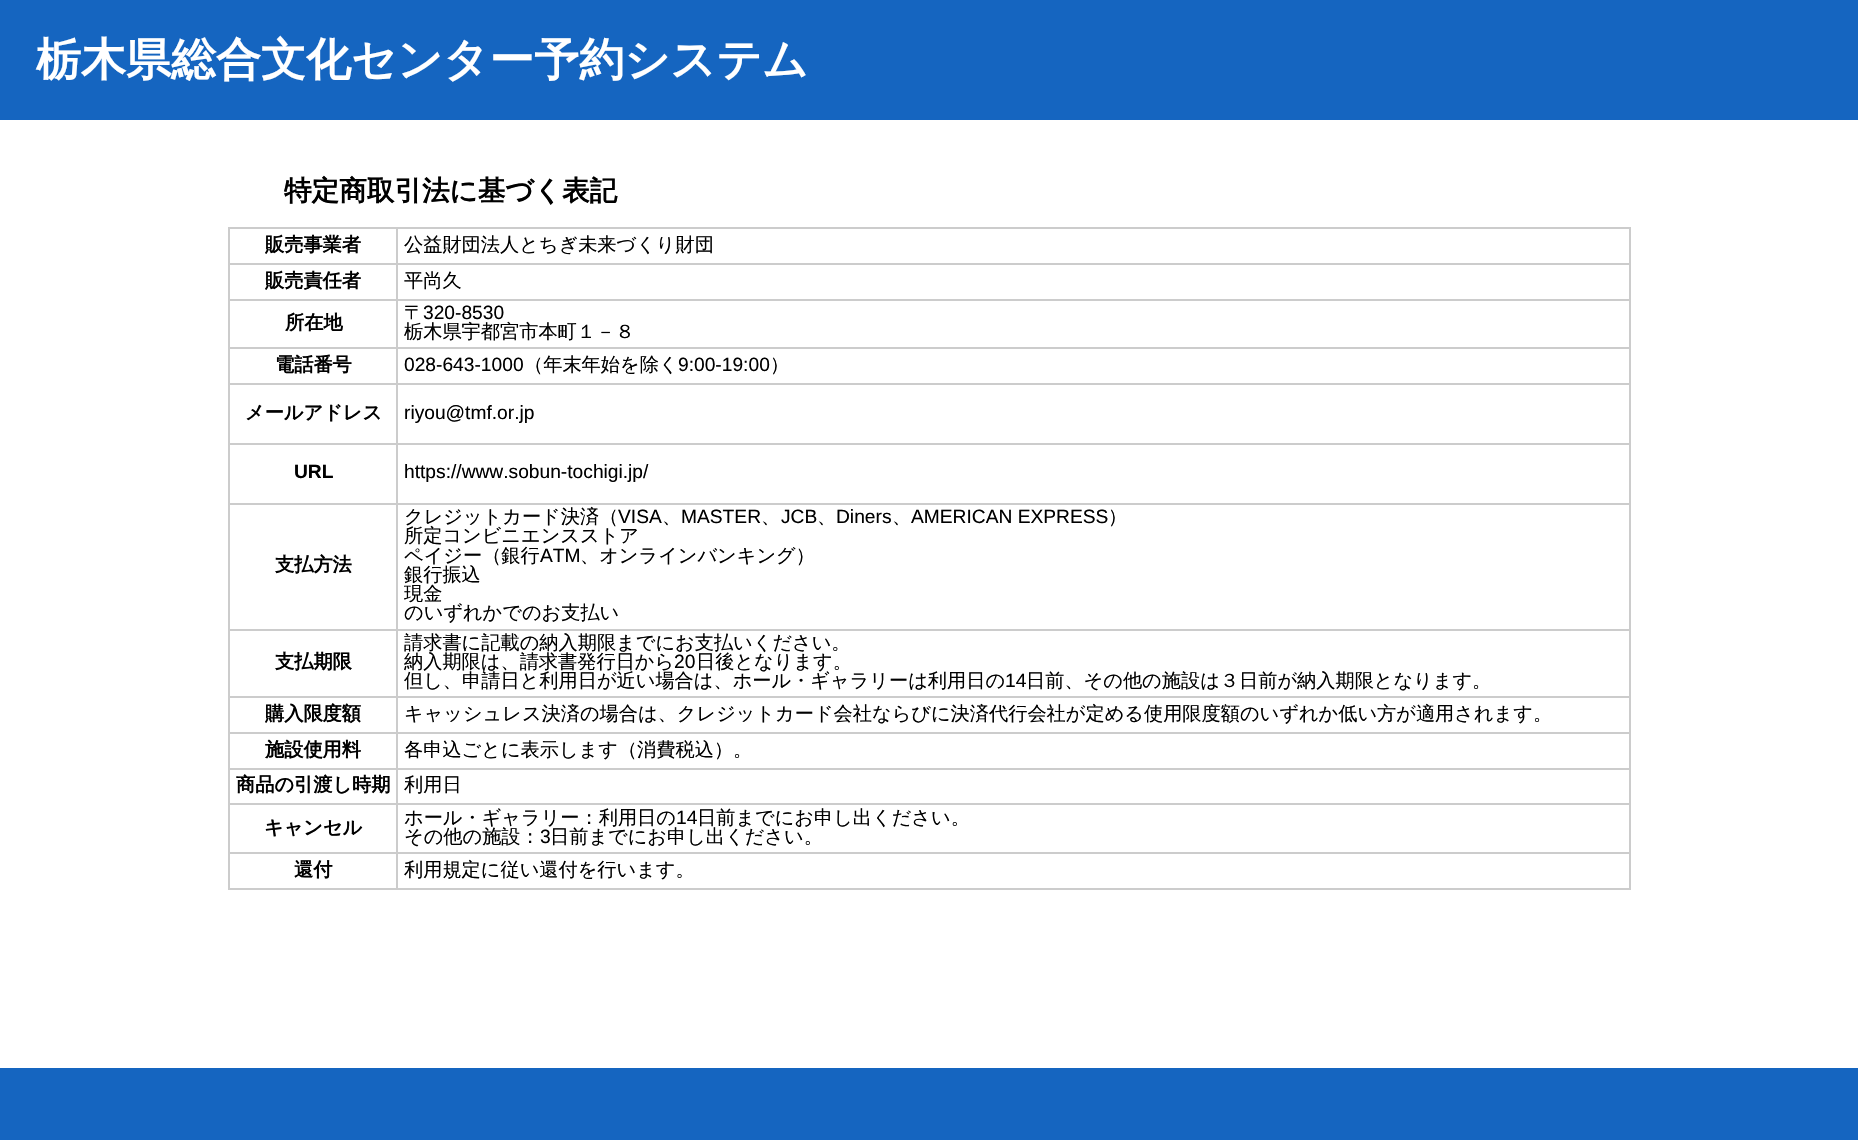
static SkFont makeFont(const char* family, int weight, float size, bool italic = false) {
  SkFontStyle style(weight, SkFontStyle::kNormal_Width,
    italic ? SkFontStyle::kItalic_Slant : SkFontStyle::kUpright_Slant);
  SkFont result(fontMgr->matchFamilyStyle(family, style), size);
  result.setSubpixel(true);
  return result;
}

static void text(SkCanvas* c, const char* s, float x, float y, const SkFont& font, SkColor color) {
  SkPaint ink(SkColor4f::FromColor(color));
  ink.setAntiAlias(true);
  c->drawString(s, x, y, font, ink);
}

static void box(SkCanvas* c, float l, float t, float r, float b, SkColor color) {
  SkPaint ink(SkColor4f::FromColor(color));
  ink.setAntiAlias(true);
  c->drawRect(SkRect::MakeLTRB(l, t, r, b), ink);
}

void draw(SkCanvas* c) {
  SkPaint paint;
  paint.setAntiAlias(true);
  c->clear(0xffffffff);
  box(c, 0, 0, 1858, 120, 0xff1565c0);
  SkFont face1 = makeFont("WenQuanYi Zen Hei", 700, 45);
  text(c, "栃木県総合文化センター予約システム", 36, 75, face1, 0xffffffff);
  SkFont face2 = makeFont("WenQuanYi Zen Hei", 700, 27.6f);
  text(c, "特定商取引法に基づく表記", 284, 200, face2, 0xff000000);
  box(c, 396, 227, 1631, 229, 0xffcccccc);
  box(c, 396, 263, 1631, 265, 0xffcccccc);
  box(c, 396, 299, 1631, 301, 0xffcccccc);
  box(c, 396, 347, 1631, 349, 0xffcccccc);
  box(c, 396, 383, 1631, 385, 0xffcccccc);
  box(c, 396, 443, 1631, 445, 0xffcccccc);
  box(c, 396, 503, 1631, 505, 0xffcccccc);
  box(c, 396, 629, 1631, 631, 0xffcccccc);
  box(c, 396, 696, 1631, 698, 0xffcccccc);
  box(c, 396, 732, 1631, 734, 0xffcccccc);
  box(c, 396, 768, 1631, 770, 0xffcccccc);
  box(c, 396, 803, 1631, 805, 0xffcccccc);
  box(c, 396, 852, 1631, 854, 0xffcccccc);
  box(c, 1629, 852, 1631, 890, 0xffcccccc);
  box(c, 396, 888, 1631, 890, 0xffcccccc);
  box(c, 396, 852, 398, 890, 0xffcccccc);
  box(c, 228, 852, 398, 854, 0xffcccccc);
  box(c, 396, 803, 398, 854, 0xffcccccc);
  box(c, 228, 803, 398, 805, 0xffcccccc);
  box(c, 396, 768, 398, 804, 0xffcccccc);
  box(c, 228, 768, 398, 770, 0xffcccccc);
  box(c, 396, 732, 398, 770, 0xffcccccc);
  box(c, 228, 732, 398, 734, 0xffcccccc);
  box(c, 396, 696, 398, 734, 0xffcccccc);
  box(c, 228, 696, 398, 698, 0xffcccccc);
  box(c, 396, 629, 398, 698, 0xffcccccc);
  box(c, 228, 629, 398, 631, 0xffcccccc);
  box(c, 396, 503, 398, 630, 0xffcccccc);
  box(c, 228, 503, 398, 505, 0xffcccccc);
  box(c, 396, 443, 398, 504, 0xffcccccc);
  box(c, 228, 443, 398, 445, 0xffcccccc);
  box(c, 396, 383, 398, 444, 0xffcccccc);
  box(c, 228, 383, 398, 385, 0xffcccccc);
  box(c, 396, 347, 398, 384, 0xffcccccc);
  box(c, 228, 347, 398, 349, 0xffcccccc);
  box(c, 396, 299, 398, 348, 0xffcccccc);
  box(c, 228, 299, 398, 301, 0xffcccccc);
  box(c, 396, 263, 398, 300, 0xffcccccc);
  box(c, 228, 263, 398, 265, 0xffcccccc);
  box(c, 396, 227, 398, 264, 0xffcccccc);
  box(c, 228, 227, 398, 229, 0xffcccccc);
  box(c, 228, 888, 398, 890, 0xffcccccc);
  box(c, 228, 852, 230, 890, 0xffcccccc);
  box(c, 228, 803, 230, 854, 0xffcccccc);
  box(c, 228, 768, 230, 804, 0xffcccccc);
  box(c, 228, 732, 230, 770, 0xffcccccc);
  box(c, 228, 696, 230, 734, 0xffcccccc);
  box(c, 228, 629, 230, 698, 0xffcccccc);
  box(c, 228, 503, 230, 630, 0xffcccccc);
  box(c, 228, 443, 230, 504, 0xffcccccc);
  box(c, 228, 383, 230, 444, 0xffcccccc);
  box(c, 228, 347, 230, 384, 0xffcccccc);
  box(c, 228, 299, 230, 348, 0xffcccccc);
  box(c, 228, 263, 230, 300, 0xffcccccc);
  box(c, 228, 227, 230, 264, 0xffcccccc);
  SkFont face3 = makeFont("WenQuanYi Zen Hei", 700, 19.2f);
  text(c, "販売事業者", 265, 251, face3, 0xff000000);
  box(c, 1629, 803, 1631, 854, 0xffcccccc);
  box(c, 1629, 768, 1631, 804, 0xffcccccc);
  box(c, 1629, 732, 1631, 770, 0xffcccccc);
  box(c, 1629, 696, 1631, 734, 0xffcccccc);
  box(c, 1629, 629, 1631, 698, 0xffcccccc);
  box(c, 1629, 503, 1631, 630, 0xffcccccc);
  box(c, 1629, 443, 1631, 504, 0xffcccccc);
  box(c, 1629, 383, 1631, 444, 0xffcccccc);
  box(c, 1629, 347, 1631, 384, 0xffcccccc);
  box(c, 1629, 299, 1631, 348, 0xffcccccc);
  box(c, 1629, 263, 1631, 300, 0xffcccccc);
  box(c, 1629, 227, 1631, 264, 0xffcccccc);
  SkFont face4 = makeFont("WenQuanYi Zen Hei", 500, 19.2f);
  text(c, "公益財団法人とちぎ未来づくり財団", 404, 251, face4, 0xff000000);
  text(c, "販売責任者", 265, 287, face3, 0xff000000);
  text(c, "平尚久", 404, 287, face4, 0xff000000);
  text(c, "所在地", 285, 329, face3, 0xff000000);
  text(c, "〒", 404, 319, face4, 0xff000000);
  SkFont face5 = makeFont("Liberation Sans", 400, 19.2f);
  text(c, "320-8530", 423, 319, face5, 0xff000000);
  text(c, "栃木県宇都宮市本町１－８", 404, 338, face4, 0xff000000);
  text(c, "電話番号", 275, 371, face3, 0xff000000);
  text(c, "028-643-1000", 404, 371, face5, 0xff000000);
  text(c, "（年末年始を除く", 524, 371, face4, 0xff000000);
  text(c, "9:00-19:00", 678, 371, face5, 0xff000000);
  text(c, "）", 770, 371, face4, 0xff000000);
  text(c, "メールアドレス", 245, 419, face3, 0xff000000);
  text(c, "riyou@tmf.or.jp", 404, 419, face5, 0xff000000);
  SkFont face6 = makeFont("Liberation Sans", 700, 19.2f);
  text(c, "URL", 294, 478, face6, 0xff000000);
  text(c, "https://www.sobun-tochigi.jp/", 404, 478, face5, 0xff000000);
  text(c, "支払方法", 275, 571, face3, 0xff000000);
  text(c, "クレジットカード決済（", 404, 523, face4, 0xff000000);
  text(c, "VISA", 618, 523, face5, 0xff000000);
  text(c, "、", 662, 523, face4, 0xff000000);
  text(c, "MASTER", 681, 523, face5, 0xff000000);
  text(c, "、", 761, 523, face4, 0xff000000);
  text(c, "JCB", 781, 523, face5, 0xff000000);
  text(c, "、", 817, 523, face4, 0xff000000);
  text(c, "Diners", 836, 523, face5, 0xff000000);
  text(c, "、", 892, 523, face4, 0xff000000);
  text(c, "AMERICAN EXPRESS", 911, 523, face5, 0xff000000);
  text(c, "）", 1108, 523, face4, 0xff000000);
  text(c, "所定コンビニエンスストア", 404, 542, face4, 0xff000000);
  text(c, "ペイジー（銀行", 404, 562, face4, 0xff000000);
  text(c, "ATM", 540, 562, face5, 0xff000000);
  text(c, "、オンラインバンキング）", 580, 562, face4, 0xff000000);
  text(c, "銀行振込", 404, 581, face4, 0xff000000);
  text(c, "現金", 404, 600, face4, 0xff000000);
  text(c, "のいずれかでのお支払い", 404, 619, face4, 0xff000000);
  text(c, "支払期限", 275, 668, face3, 0xff000000);
  text(c, "請求書に記載の納入期限までにお支払いください。", 404, 649, face4, 0xff000000);
  text(c, "納入期限は、請求書発行日から", 404, 668, face4, 0xff000000);
  text(c, "20", 674, 668, face5, 0xff000000);
  text(c, "日後となります。", 696, 668, face4, 0xff000000);
  text(c, "但し、申請日と利用日が近い場合は、ホール・ギャラリーは利用日の", 404, 687, face4, 0xff000000);
  text(c, "14", 1005, 687, face5, 0xff000000);
  text(c, "日前、その他の施設は３日前が納入期限となります。", 1026, 687, face4, 0xff000000);
  text(c, "購入限度額", 265, 720, face3, 0xff000000);
  text(c, "キャッシュレス決済の場合は、クレジットカード会社ならびに決済代行会社が定める使用限度額のいずれか低い方が適用されます。", 404, 720, face4, 0xff000000);
  text(c, "施設使用料", 265, 756, face3, 0xff000000);
  text(c, "各申込ごとに表示します（消費税込）。", 404, 756, face4, 0xff000000);
  text(c, "商品の引渡し時期", 236, 791, face3, 0xff000000);
  text(c, "利用日", 404, 791, face4, 0xff000000);
  text(c, "キャンセル", 264, 834, face3, 0xff000000);
  text(c, "ホール・ギャラリー：利用日の", 404, 824, face4, 0xff000000);
  text(c, "14", 676, 824, face5, 0xff000000);
  text(c, "日前までにお申し出ください。", 697, 824, face4, 0xff000000);
  text(c, "その他の施設：", 404, 843, face4, 0xff000000);
  text(c, "3", 540, 843, face5, 0xff000000);
  text(c, "日前までにお申し出ください。", 550, 843, face4, 0xff000000);
  text(c, "還付", 294, 876, face3, 0xff000000);
  text(c, "利用規定に従い還付を行います。", 404, 876, face4, 0xff000000);
  box(c, 0, 1068, 1858, 1140, 0xff1565c0);
}
